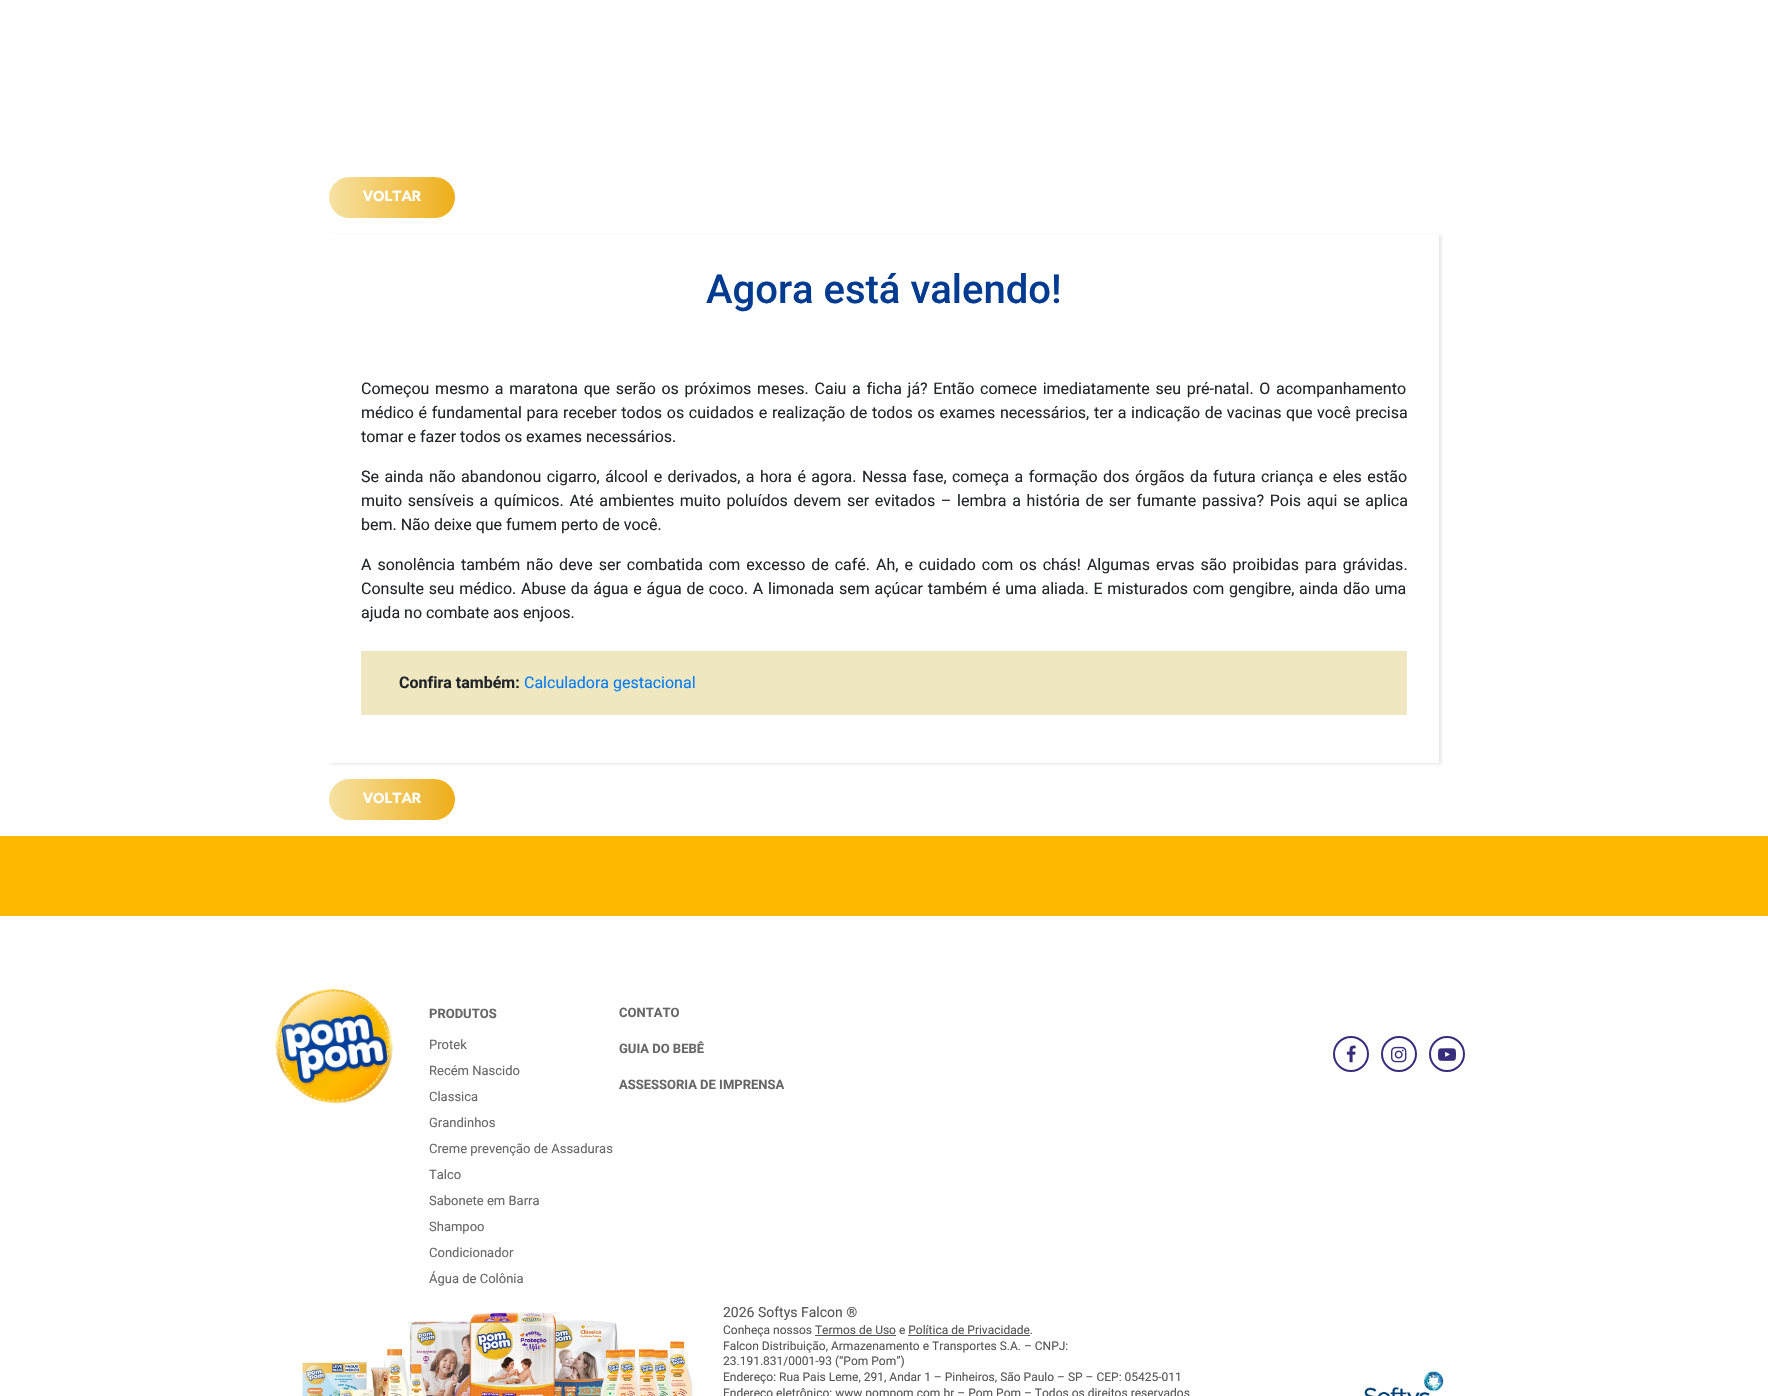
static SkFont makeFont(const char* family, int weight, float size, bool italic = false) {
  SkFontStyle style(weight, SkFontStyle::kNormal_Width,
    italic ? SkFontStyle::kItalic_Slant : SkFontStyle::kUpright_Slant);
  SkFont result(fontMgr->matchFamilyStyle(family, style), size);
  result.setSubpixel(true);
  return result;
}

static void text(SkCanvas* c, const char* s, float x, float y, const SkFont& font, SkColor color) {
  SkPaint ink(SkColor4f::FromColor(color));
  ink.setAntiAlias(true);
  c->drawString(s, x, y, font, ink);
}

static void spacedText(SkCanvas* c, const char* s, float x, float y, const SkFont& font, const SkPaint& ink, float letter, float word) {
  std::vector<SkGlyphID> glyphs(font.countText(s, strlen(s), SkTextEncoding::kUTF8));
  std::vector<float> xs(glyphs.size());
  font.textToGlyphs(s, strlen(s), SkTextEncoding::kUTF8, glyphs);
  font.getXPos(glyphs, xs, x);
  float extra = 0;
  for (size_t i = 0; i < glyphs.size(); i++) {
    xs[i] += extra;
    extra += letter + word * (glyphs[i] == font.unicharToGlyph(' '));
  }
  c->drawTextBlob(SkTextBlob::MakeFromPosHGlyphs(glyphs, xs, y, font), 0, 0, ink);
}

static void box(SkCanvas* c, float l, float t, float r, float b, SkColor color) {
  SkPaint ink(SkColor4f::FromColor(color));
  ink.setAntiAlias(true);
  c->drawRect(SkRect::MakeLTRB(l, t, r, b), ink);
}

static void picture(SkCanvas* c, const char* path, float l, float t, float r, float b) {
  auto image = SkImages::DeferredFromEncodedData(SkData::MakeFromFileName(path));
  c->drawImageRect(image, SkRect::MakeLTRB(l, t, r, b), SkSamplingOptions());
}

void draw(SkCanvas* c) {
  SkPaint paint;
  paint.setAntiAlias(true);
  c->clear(0xffffffff);
  {
    const SkColor colors[] = {0xfff6e2a3, 0xffefae19};
    const float stops[] = {0, 1};
    const SkPoint ends[] = {{329, 198}, {455, 198}};
    paint.setShader(SkGradientShader::MakeLinear(ends, colors, stops, 2, SkTileMode::kClamp));
    paint.setAlpha(255);
  }
  c->drawRoundRect(SkRect::MakeLTRB(329, 177, 455, 218), 20.5f, 20.5f, paint);
  SkFont face1 = makeFont("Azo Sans", 700, 14);
  text(c, "VOLTAR", 363, 201, face1, 0xffffffff);
  c->save();
  c->clipPath(SkPathBuilder(SkPathFillType::kEvenOdd).moveTo(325, 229).lineTo(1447, 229).lineTo(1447, 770).lineTo(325, 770).close().moveTo(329, 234).lineTo(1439, 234).lineTo(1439, 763).lineTo(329, 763).close().detach(), true);
  paint.setShader(nullptr);
  paint.setColor(0x1c000000);
  paint.setMaskFilter(SkMaskFilter::MakeBlur(kNormal_SkBlurStyle, 1.5f));
  c->drawRect(SkRect::MakeLTRB(331, 235, 1441, 764), paint);
  paint.setMaskFilter(nullptr);
  c->restore();
  SkFont face2 = makeFont("Roboto", 500, 40);
  text(c, "Agora está valendo!", 706, 303, face2, 0xff013b91);
  SkFont face3 = makeFont("Roboto", 400, 16);
  paint.setColor(0xff212529);
  spacedText(c, "Começou mesmo a maratona que serão os próximos meses. Caiu a ficha já? Então comece imediatamente seu pré-natal. O acompanhamento", 361, 394, face3, paint, 0, 1.75f);
  spacedText(c, "médico é fundamental para receber todos os cuidados e realização de todos os exames necessários, ter a indicação de vacinas que você precisa", 361, 418, face3, paint, 0, 0.7f);
  text(c, "tomar e fazer todos os exames necessários.", 361, 442, face3, 0xff212529);
  spacedText(c, "Se ainda não abandonou cigarro, álcool e derivados, a hora é agora. Nessa fase, começa a formação dos órgãos da futura criança e eles estão", 361, 482, face3, paint, 0, 1.45f);
  spacedText(c, "muito sensíveis a químicos. Até ambientes muito poluídos devem ser evitados – lembra a história de ser fumante passiva? Pois aqui se aplica", 361, 506, face3, paint, 0, 1.7f);
  text(c, "bem. Não deixe que fumem perto de você.", 361, 530, face3, 0xff212529);
  spacedText(c, "A sonolência também não deve ser combatida com excesso de café. Ah, e cuidado com os chás! Algumas ervas são proibidas para grávidas.", 361, 570, face3, paint, 0, 2);
  spacedText(c, "Consulte seu médico. Abuse da água e água de coco. A limonada sem açúcar também é uma aliada. E misturados com gengibre, ainda dão uma", 361, 594, face3, paint, 0, 0.8f);
  text(c, "ajuda no combate aos enjoos.", 361, 618, face3, 0xff212529);
  box(c, 361, 651, 1407, 715, 0xffefe7c0);
  SkFont face4 = makeFont("Roboto", 700, 16);
  text(c, "Confira também:", 399, 688, face4, 0xff212529);
  text(c, "Calculadora gestacional", 524, 688, face3, 0xff007bff);
  {
    const SkColor colors[] = {0xfff6e2a3, 0xffefae19};
    const float stops[] = {0, 1};
    const SkPoint ends[] = {{329, 800}, {455, 800}};
    paint.setShader(SkGradientShader::MakeLinear(ends, colors, stops, 2, SkTileMode::kClamp));
    paint.setAlpha(255);
  }
  c->drawRoundRect(SkRect::MakeLTRB(329, 779, 455, 820), 20.5f, 20.5f, paint);
  text(c, "VOLTAR", 363, 803, face1, 0xffffffff);
  box(c, 0, 836, 1768, 916, 0xffffba00);
  picture(c, "img_01.png", 275, 988, 393, 1104);
  SkFont face5 = makeFont("Roboto", 700, 13);
  text(c, "PRODUTOS", 429, 1018, face5, 0xff666666);
  SkFont face6 = makeFont("Roboto", 400, 13);
  text(c, "Protek", 429, 1049, face6, 0xff666666);
  text(c, "Recém Nascido", 429, 1075, face6, 0xff666666);
  text(c, "Classica", 429, 1101, face6, 0xff666666);
  text(c, "Grandinhos", 429, 1127, face6, 0xff666666);
  text(c, "Creme prevenção de Assaduras", 429, 1153, face6, 0xff666666);
  text(c, "Talco", 429, 1179, face6, 0xff666666);
  text(c, "Sabonete em Barra", 429, 1205, face6, 0xff666666);
  text(c, "Shampoo", 429, 1231, face6, 0xff666666);
  text(c, "Condicionador", 429, 1257, face6, 0xff666666);
  text(c, "Água de Colônia", 429, 1283, face6, 0xff666666);
  text(c, "CONTATO", 619, 1017, face5, 0xff666666);
  text(c, "GUIA DO BEBÊ", 619, 1053, face5, 0xff666666);
  text(c, "ASSESSORIA DE IMPRENSA", 619, 1089, face5, 0xff666666);
  paint.setStyle(SkPaint::kStroke_Style);
  paint.setStrokeWidth(2);
  paint.setShader(nullptr);
  paint.setColor(0xff382d7c);
  c->drawCircle(1351, 1054, 17, paint);
  picture(c, "img_02.png", 1346, 1045, 1356, 1063);
  c->drawCircle(1399, 1054, 17, paint);
  picture(c, "img_03.png", 1391, 1046, 1407, 1063);
  c->drawCircle(1447, 1054, 17, paint);
  picture(c, "img_04.png", 1438, 1048, 1456, 1061);
  picture(c, "img_05.png", 302, 1312, 693, 1396);
  SkFont face7 = makeFont("Roboto", 400, 14);
  text(c, "2026 Softys Falcon ®", 723, 1317, face7, 0xff555555);
  SkFont face8 = makeFont("Roboto", 400, 12);
  text(c, "Conheça nossos Termos de Uso e Política de Privacidade.", 723, 1334, face8, 0xff555555);
  box(c, 815, 1335, 896, 1336, 0xff555555);
  box(c, 908, 1335, 1030, 1336, 0xff555555);
  text(c, "Falcon Distribuição, Armazenamento e Transportes S.A. – CNPJ:", 723, 1350, face8, 0xff555555);
  text(c, "23.191.831/0001-93 (“Pom Pom”)", 723, 1365, face8, 0xff555555);
  text(c, "Endereço: Rua Pais Leme, 291, Andar 1 – Pinheiros, São Paulo – SP – CEP: 05425-011", 723, 1381, face8, 0xff555555);
  text(c, "Endereço eletrônico: www.pompom.com.br – Pom Pom – Todos os direitos reservados", 723, 1397, face8, 0xff555555);
  picture(c, "img_06.png", 1364, 1371, 1444, 1396);
}
